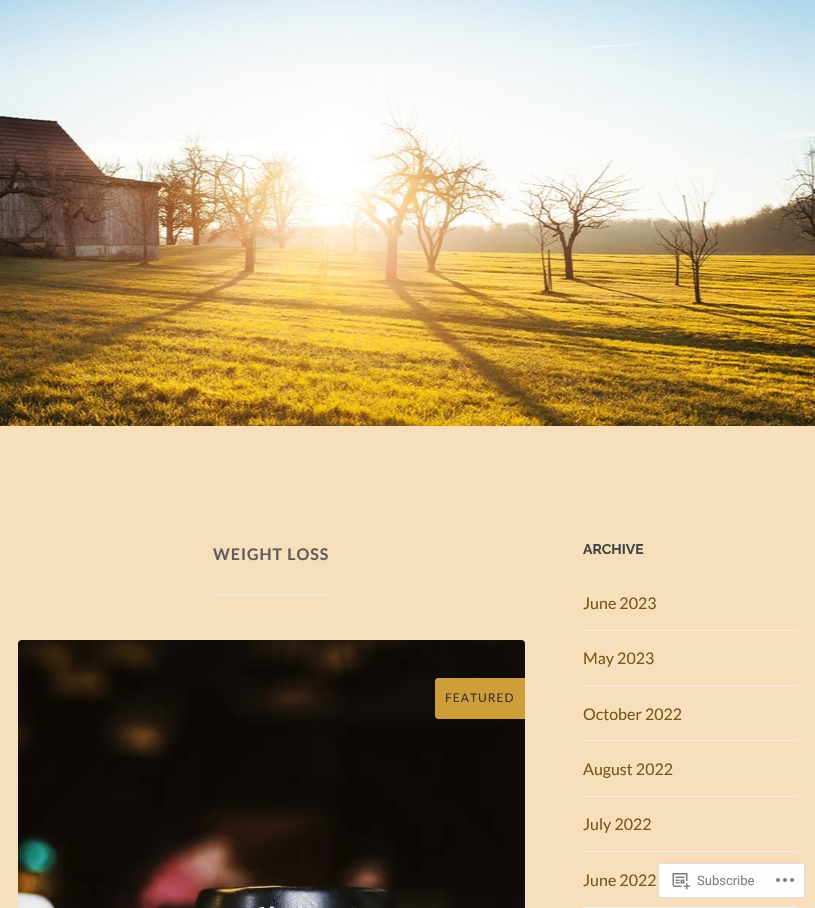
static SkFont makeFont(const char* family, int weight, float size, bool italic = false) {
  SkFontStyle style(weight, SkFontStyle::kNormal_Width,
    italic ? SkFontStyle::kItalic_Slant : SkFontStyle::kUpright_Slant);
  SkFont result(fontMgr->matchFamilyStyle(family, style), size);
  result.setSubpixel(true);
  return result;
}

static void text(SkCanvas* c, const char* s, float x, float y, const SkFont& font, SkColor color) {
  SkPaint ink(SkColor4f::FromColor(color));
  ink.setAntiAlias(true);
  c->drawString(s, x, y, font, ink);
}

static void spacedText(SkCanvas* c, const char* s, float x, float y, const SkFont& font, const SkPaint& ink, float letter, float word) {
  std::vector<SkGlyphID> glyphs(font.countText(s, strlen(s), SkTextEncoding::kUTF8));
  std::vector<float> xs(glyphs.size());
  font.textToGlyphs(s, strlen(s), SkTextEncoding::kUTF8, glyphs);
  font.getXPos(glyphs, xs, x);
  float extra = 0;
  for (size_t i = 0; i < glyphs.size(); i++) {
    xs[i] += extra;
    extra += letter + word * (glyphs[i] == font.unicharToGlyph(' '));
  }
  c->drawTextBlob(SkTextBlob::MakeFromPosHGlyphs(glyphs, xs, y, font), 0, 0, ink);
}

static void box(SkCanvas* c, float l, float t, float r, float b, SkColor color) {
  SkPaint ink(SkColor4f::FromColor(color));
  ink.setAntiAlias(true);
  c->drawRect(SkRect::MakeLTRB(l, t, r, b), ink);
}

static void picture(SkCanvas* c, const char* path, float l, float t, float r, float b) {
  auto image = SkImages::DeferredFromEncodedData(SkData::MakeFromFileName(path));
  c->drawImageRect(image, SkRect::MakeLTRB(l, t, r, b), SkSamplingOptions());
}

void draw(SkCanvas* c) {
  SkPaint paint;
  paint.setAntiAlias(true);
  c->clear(0xfff7dfbb);
  picture(c, "img_01.png", 0, 0, 815, 426);
  box(c, 213, 594, 329, 596, 0xfff3e7d5);
  SkFont face1 = makeFont("Lato", 700, 16);
  paint.setColor(0xff5e5e5e);
  spacedText(c, "WEIGHT LOSS", 213, 560, face1, paint, 1, 0);
  picture(c, "img_02.png", 18, 640, 525, 908);
  paint.setColor(0xffcf9e38);
  c->drawPath(SkPathBuilder().moveTo(438, 678).lineTo(525, 678).lineTo(525, 719).lineTo(438, 719).cubicTo(436.5f, 719, 435, 717.5f, 435, 716).lineTo(435, 681).cubicTo(435, 679.5f, 436.5f, 678, 438, 678).close().detach(), paint);
  SkFont face2 = makeFont("Lato", 400, 12);
  paint.setColor(0xff353535);
  spacedText(c, "FEATURED", 445, 702, face2, paint, 1, 0);
  SkFont face3 = makeFont("Raleway", 700, 14);
  text(c, "ARCHIVE", 583, 554, face3, 0xff444444);
  SkFont face4 = makeFont("Lato", 400, 16);
  text(c, "June 2023", 583, 609, face4, 0xff775817);
  box(c, 583, 630, 798, 631, 0xffeeeeee);
  text(c, "May 2023", 583, 664, face4, 0xff775817);
  box(c, 583, 685, 798, 686, 0xffeeeeee);
  text(c, "October 2022", 583, 720, face4, 0xff775817);
  box(c, 583, 740, 798, 741, 0xffeeeeee);
  text(c, "August 2022", 583, 775, face4, 0xff775817);
  box(c, 583, 796, 798, 797, 0xffeeeeee);
  text(c, "July 2022", 583, 830, face4, 0xff775817);
  box(c, 583, 851, 798, 852, 0xffeeeeee);
  text(c, "June 2022", 583, 886, face4, 0xff775817);
  box(c, 583, 907, 798, 908, 0xffeeeeee);
  paint.setColor(0xfffffefe);
  c->drawRoundRect(SkRect::MakeLTRB(658.5f, 863.5f, 804.5f, 897.5f), 2.5f, 2.5f, paint);
  paint.setStyle(SkPaint::kStroke_Style);
  paint.setStrokeWidth(1);
  paint.setColor(0xffdddcdd);
  c->drawRoundRect(SkRect::MakeLTRB(658.5f, 863.5f, 804.5f, 897.5f), 2.5f, 2.5f, paint);
  picture(c, "img_03.png", 672, 873, 690, 890);
  SkFont face5 = makeFont("Roboto", 400, 13);
  text(c, "Subscribe", 697, 885, face5, 0xff7b7e83);
  picture(c, "img_04.png", 776, 878, 794, 882);
}
